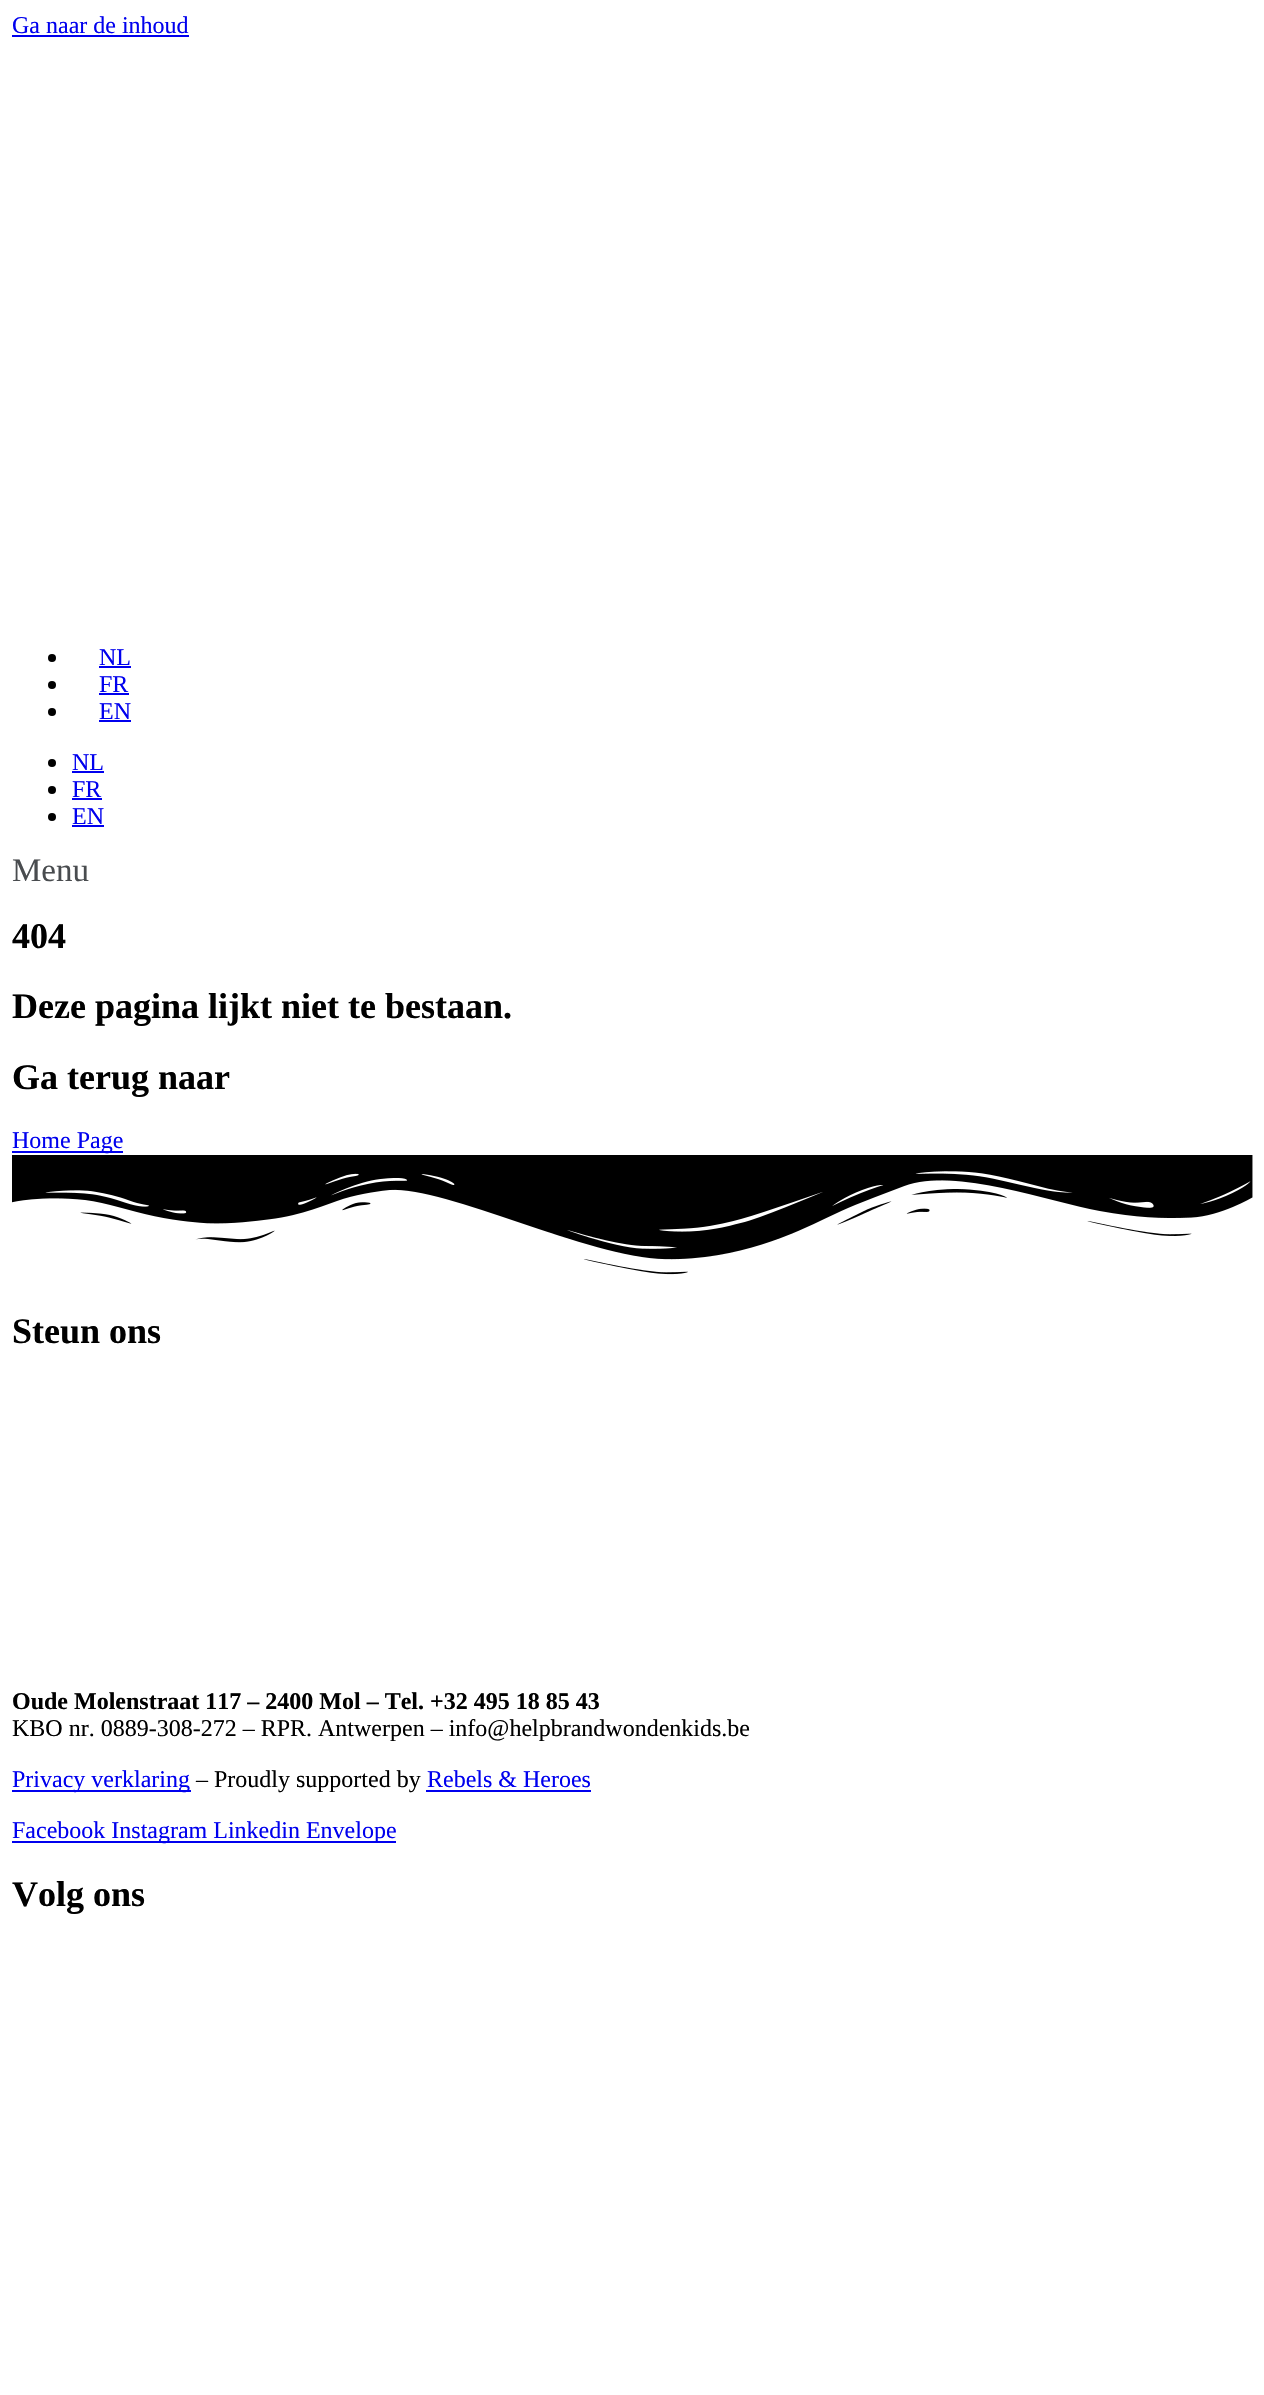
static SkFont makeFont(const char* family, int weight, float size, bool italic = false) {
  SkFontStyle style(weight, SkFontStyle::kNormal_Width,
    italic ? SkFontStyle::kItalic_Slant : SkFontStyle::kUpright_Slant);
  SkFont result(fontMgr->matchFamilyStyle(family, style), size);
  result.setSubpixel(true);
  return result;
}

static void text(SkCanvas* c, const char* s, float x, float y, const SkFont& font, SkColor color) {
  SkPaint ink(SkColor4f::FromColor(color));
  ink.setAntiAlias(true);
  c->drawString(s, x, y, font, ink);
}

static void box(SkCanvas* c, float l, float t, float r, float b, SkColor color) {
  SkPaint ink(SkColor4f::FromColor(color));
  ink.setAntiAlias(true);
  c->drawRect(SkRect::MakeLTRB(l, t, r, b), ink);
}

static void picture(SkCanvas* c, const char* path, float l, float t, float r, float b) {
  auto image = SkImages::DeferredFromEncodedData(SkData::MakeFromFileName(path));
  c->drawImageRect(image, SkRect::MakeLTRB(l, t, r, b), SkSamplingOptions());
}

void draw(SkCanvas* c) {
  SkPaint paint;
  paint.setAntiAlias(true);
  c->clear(0xffffffff);
  SkFont face1 = makeFont("Liberation Serif", 400, 24);
  text(c, "Ga naar de inhoud", 12, 33, face1, 0xff0000ee);
  box(c, 12, 35, 189, 37, 0xff0000ee);
  paint.setColor(0xff000000);
  c->drawCircle(52, 658, 4, paint);
  text(c, "NL", 99, 665, face1, 0xff0000ee);
  box(c, 99, 666, 131, 668, 0xff0000ee);
  c->drawCircle(52, 685, 4, paint);
  text(c, "FR", 99, 692, face1, 0xff0000ee);
  box(c, 99, 693, 129, 695, 0xff0000ee);
  c->drawCircle(52, 712, 4, paint);
  text(c, "EN", 99, 719, face1, 0xff0000ee);
  box(c, 99, 720, 131, 722, 0xff0000ee);
  c->drawCircle(52, 763, 4, paint);
  text(c, "NL", 72, 770, face1, 0xff0000ee);
  box(c, 72, 771, 104, 773, 0xff0000ee);
  c->drawCircle(52, 790, 4, paint);
  text(c, "FR", 72, 797, face1, 0xff0000ee);
  box(c, 72, 798, 102, 800, 0xff0000ee);
  c->drawCircle(52, 817, 4, paint);
  text(c, "EN", 72, 824, face1, 0xff0000ee);
  box(c, 72, 825, 104, 827, 0xff0000ee);
  SkFont face2 = makeFont("Liberation Serif", 400, 33);
  text(c, "Menu", 12, 881, face2, 0xff494c4f);
  SkFont face3 = makeFont("Liberation Serif", 700, 36);
  text(c, "404", 12, 948, face3, 0xff000000);
  text(c, "Deze pagina lijkt niet te bestaan.", 12, 1018, face3, 0xff000000);
  text(c, "Ga terug naar", 12, 1089, face3, 0xff000000);
  box(c, 12, 1151, 123, 1153, 0xff0000ee);
  text(c, "Home Page", 12, 1148, face1, 0xff0000ee);
  picture(c, "img_01.png", 12, 1155, 1253, 1275);
  text(c, "Steun ons", 12, 1343, face3, 0xff000000);
  SkFont face4 = makeFont("Liberation Serif", 700, 24);
  text(c, "Oude Molenstraat 117 – 2400 Mol – Tel. +32 495 18 85 43", 12, 1709, face4, 0xff000000);
  text(c, "KBO nr. 0889-308-272 – RPR. Antwerpen – info@helpbrandwondenkids.be", 12, 1736, face1, 0xff000000);
  box(c, 12, 1790, 191, 1792, 0xff0000ee);
  text(c, "Privacy verklaring", 12, 1787, face1, 0xff0000ee);
  text(c, "– Proudly supported by", 196, 1787, face1, 0xff000000);
  text(c, "Rebels & Heroes", 427, 1787, face1, 0xff0000ee);
  box(c, 426, 1790, 591, 1792, 0xff0000ee);
  box(c, 12, 1841, 396, 1843, 0xff0000ee);
  text(c, "Facebook Instagram Linkedin Envelope", 12, 1838, face1, 0xff0000ee);
  text(c, "Volg ons", 12, 1906, face3, 0xff000000);
}
